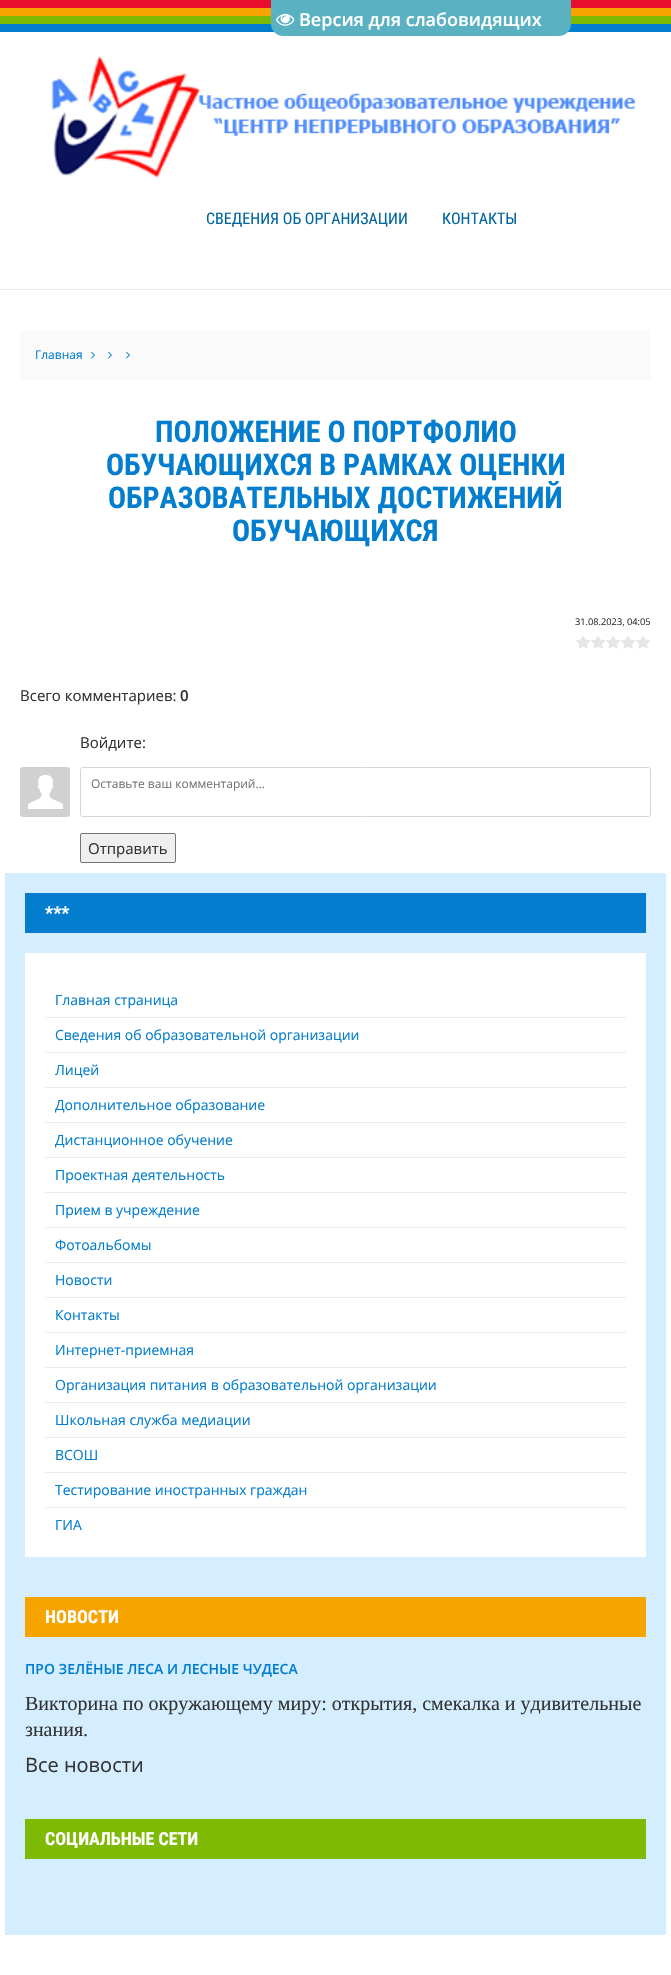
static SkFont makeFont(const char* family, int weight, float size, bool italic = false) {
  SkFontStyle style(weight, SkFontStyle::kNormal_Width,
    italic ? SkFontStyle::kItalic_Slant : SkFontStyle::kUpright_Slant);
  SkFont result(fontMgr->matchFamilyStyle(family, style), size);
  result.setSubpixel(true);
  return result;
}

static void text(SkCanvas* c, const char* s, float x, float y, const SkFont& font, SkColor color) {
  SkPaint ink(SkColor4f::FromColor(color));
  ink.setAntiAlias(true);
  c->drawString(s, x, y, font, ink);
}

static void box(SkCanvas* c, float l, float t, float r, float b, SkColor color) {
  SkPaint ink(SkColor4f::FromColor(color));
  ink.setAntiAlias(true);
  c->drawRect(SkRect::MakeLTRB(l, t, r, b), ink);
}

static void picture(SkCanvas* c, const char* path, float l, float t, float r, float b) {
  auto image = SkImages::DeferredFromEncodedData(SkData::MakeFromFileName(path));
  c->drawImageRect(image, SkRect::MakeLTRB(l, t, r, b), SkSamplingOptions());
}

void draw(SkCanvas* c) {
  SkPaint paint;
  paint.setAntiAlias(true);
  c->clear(0xffffffff);
  box(c, 0, 0, 671, 8, 0xffe70e2d);
  box(c, 0, 8, 671, 16, 0xfff7a400);
  box(c, 0, 16, 671, 24, 0xff7eba03);
  box(c, 0, 24, 671, 32, 0xff037ecf);
  paint.setColor(0xff59b1c2);
  c->drawPath(SkPathBuilder().moveTo(271, 0).lineTo(571, 0).lineTo(571, 24).cubicTo(571, 30.5f, 565.5f, 36, 559, 36).lineTo(283, 36).cubicTo(276.5f, 36, 271, 30.5f, 271, 24).close().detach(), paint);
  picture(c, "img_01.png", 276, 13, 294, 26);
  SkFont face1 = makeFont("Open Sans", 600, 18);
  text(c, "Версия для слабовидящих", 299, 26, face1, 0xffffffff);
  box(c, 0, 289, 671, 290, 0xffeeeeee);
  picture(c, "img_02.png", 51, 56, 636, 178);
  SkFont face2 = makeFont("Roboto Condensed", 400, 16);
  text(c, "СВЕДЕНИЯ ОБ ОРГАНИЗАЦИИ", 206, 224, face2, 0xff0066a0);
  text(c, "КОНТАКТЫ", 442, 224, face2, 0xff0066a0);
  box(c, 20, 330, 651, 380, 0xfffafafa);
  SkFont face3 = makeFont("Open Sans", 400, 12);
  text(c, "Главная", 35, 359, face3, 0xff037ecf);
  picture(c, "img_03.png", 91, 351, 95, 359);
  picture(c, "img_03.png", 108, 351, 112, 359);
  picture(c, "img_03.png", 126, 351, 130, 359);
  SkFont face4 = makeFont("Roboto Condensed", 700, 30);
  text(c, "ПОЛОЖЕНИЕ О ПОРТФОЛИО", 155, 442, face4, 0xff037ecf);
  text(c, "ОБУЧАЮЩИХСЯ В РАМКАХ ОЦЕНКИ", 106, 475, face4, 0xff037ecf);
  text(c, "ОБРАЗОВАТЕЛЬНЫХ ДОСТИЖЕНИЙ", 108, 508, face4, 0xff037ecf);
  text(c, "ОБУЧАЮЩИХСЯ", 232, 541, face4, 0xff037ecf);
  SkFont face5 = makeFont("Open Sans", 400, 9.25f);
  text(c, "31.08.2023, 04:05", 575, 625, face5, 0xff333333);
  picture(c, "img_04.png", 576, 635, 651, 649);
  SkFont face6 = makeFont("Open Sans", 400, 15);
  text(c, "Всего комментариев:", 20, 701, face6, 0xff333333);
  SkFont face7 = makeFont("Open Sans", 600, 15);
  text(c, "0", 180, 701, face7, 0xff333333);
  text(c, "Войдите:", 80, 748, face6, 0xff333333);
  picture(c, "img_05.png", 20, 767, 70, 817);
  paint.setStyle(SkPaint::kStroke_Style);
  paint.setStrokeWidth(1);
  paint.setColor(0xffd6d6d6);
  c->drawRoundRect(SkRect::MakeLTRB(80.5f, 767.5f, 650.5f, 816.5f), 2.5f, 2.5f, paint);
  text(c, "Оставьте ваш комментарий...", 91, 788, face3, 0xff757575);
  paint.setStyle(SkPaint::kFill_Style);
  paint.setColor(0xffefefef);
  c->drawRoundRect(SkRect::MakeLTRB(80.5f, 833.5f, 175.5f, 862.5f), 1.5f, 1.5f, paint);
  paint.setStyle(SkPaint::kStroke_Style);
  paint.setColor(0xff767676);
  c->drawRoundRect(SkRect::MakeLTRB(80.5f, 833.5f, 175.5f, 862.5f), 1.5f, 1.5f, paint);
  text(c, "Отправить", 88, 854, face6, 0xff333333);
  box(c, 5, 873, 666, 1935, 0xffd5eeff);
  box(c, 25, 893, 646, 933, 0xff037ecf);
  SkFont face8 = makeFont("Roboto Condensed", 700, 18);
  text(c, "***", 45, 919, face8, 0xffffffff);
  box(c, 25, 953, 646, 1557, 0xffffffff);
  box(c, 45, 1017, 626, 1018, 0xffebebeb);
  SkFont face9 = makeFont("Open Sans", 400, 14);
  text(c, "Главная страница", 55, 1005, face9, 0xff037ecf);
  box(c, 45, 1052, 626, 1053, 0xffebebeb);
  text(c, "Сведения об образовательной организации", 55, 1040, face9, 0xff037ecf);
  box(c, 45, 1087, 626, 1088, 0xffebebeb);
  text(c, "Лицей", 55, 1075, face9, 0xff037ecf);
  box(c, 45, 1122, 626, 1123, 0xffebebeb);
  text(c, "Дополнительное образование", 55, 1110, face9, 0xff037ecf);
  box(c, 45, 1157, 626, 1158, 0xffebebeb);
  text(c, "Дистанционное обучение", 55, 1145, face9, 0xff037ecf);
  box(c, 45, 1192, 626, 1193, 0xffebebeb);
  text(c, "Проектная деятельность", 55, 1180, face9, 0xff037ecf);
  box(c, 45, 1227, 626, 1228, 0xffebebeb);
  text(c, "Прием в учреждение", 55, 1215, face9, 0xff037ecf);
  box(c, 45, 1262, 626, 1263, 0xffebebeb);
  text(c, "Фотоальбомы", 55, 1250, face9, 0xff037ecf);
  box(c, 45, 1297, 626, 1298, 0xffebebeb);
  text(c, "Новости", 55, 1285, face9, 0xff037ecf);
  box(c, 45, 1332, 626, 1333, 0xffebebeb);
  text(c, "Контакты", 55, 1320, face9, 0xff037ecf);
  box(c, 45, 1367, 626, 1368, 0xffebebeb);
  text(c, "Интернет-приемная", 55, 1355, face9, 0xff037ecf);
  box(c, 45, 1402, 626, 1403, 0xffebebeb);
  text(c, "Организация питания в образовательной организации", 55, 1390, face9, 0xff037ecf);
  box(c, 45, 1437, 626, 1438, 0xffebebeb);
  text(c, "Школьная служба медиации", 55, 1425, face9, 0xff037ecf);
  box(c, 45, 1472, 626, 1473, 0xffebebeb);
  text(c, "ВСОШ", 55, 1460, face9, 0xff037ecf);
  box(c, 45, 1507, 626, 1508, 0xffebebeb);
  text(c, "Тестирование иностранных граждан", 55, 1495, face9, 0xff037ecf);
  text(c, "ГИА", 55, 1530, face9, 0xff037ecf);
  box(c, 25, 1597, 646, 1637, 0xfff7a400);
  text(c, "НОВОСТИ", 45, 1623, face8, 0xffffffff);
  SkFont face10 = makeFont("Open Sans", 600, 14);
  text(c, "ПРО ЗЕЛЁНЫЕ ЛЕСА И ЛЕСНЫЕ ЧУДЕСА", 25, 1674, face10, 0xff037ecf);
  SkFont face11 = makeFont("Liberation Serif", 400, 20);
  text(c, "Викторина по окружающему миру: открытия, смекалка и удивительные", 25, 1710, face11, 0xff333333);
  text(c, "знания.", 25, 1736, face11, 0xff333333);
  SkFont face12 = makeFont("Open Sans", 400, 20);
  text(c, "Все новости", 25, 1772, face12, 0xff333333);
  box(c, 25, 1819, 646, 1859, 0xff7eba03);
  text(c, "СОЦИАЛЬНЫЕ СЕТИ", 45, 1845, face8, 0xffffffff);
}
